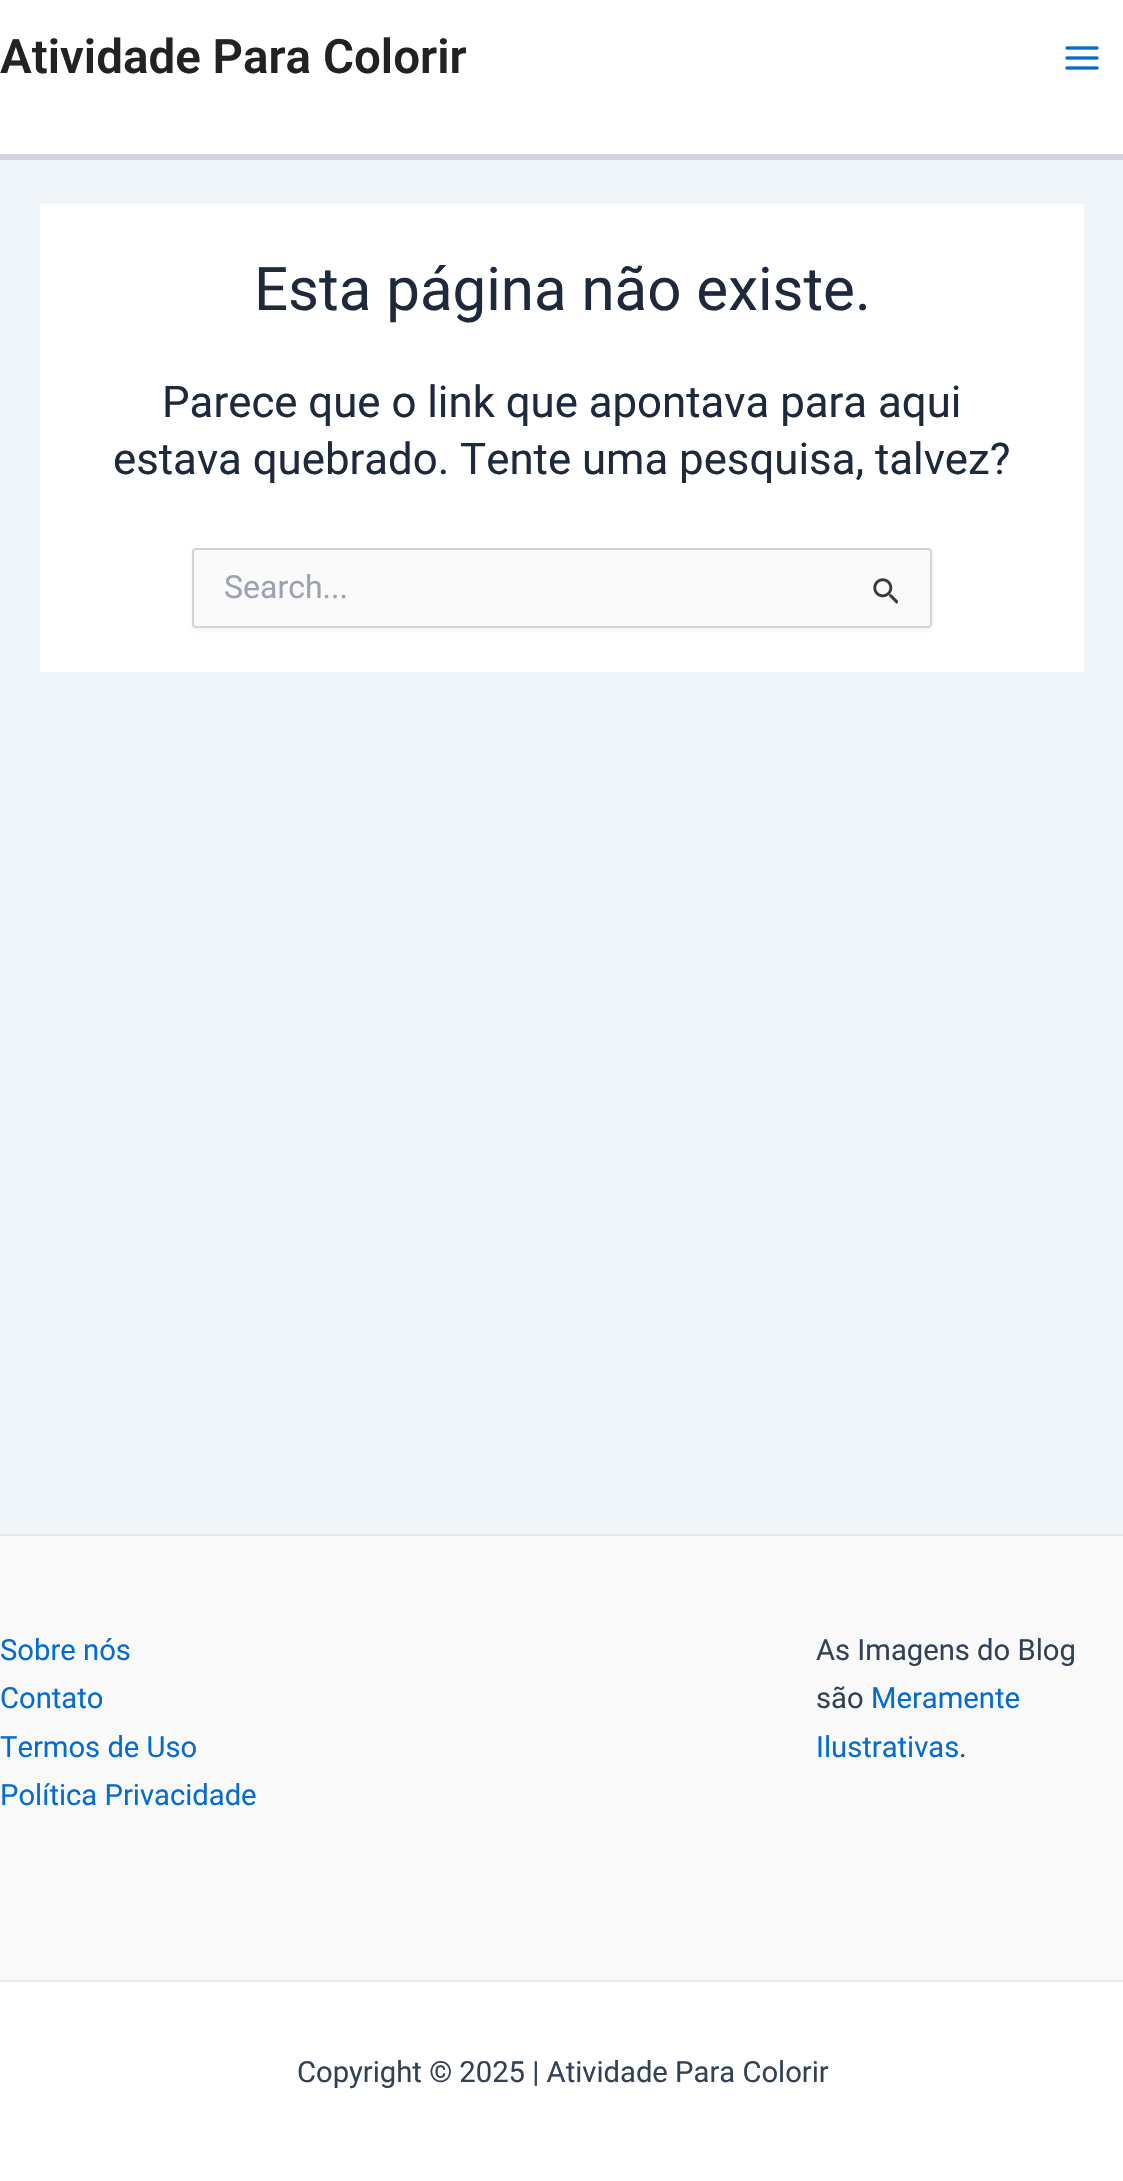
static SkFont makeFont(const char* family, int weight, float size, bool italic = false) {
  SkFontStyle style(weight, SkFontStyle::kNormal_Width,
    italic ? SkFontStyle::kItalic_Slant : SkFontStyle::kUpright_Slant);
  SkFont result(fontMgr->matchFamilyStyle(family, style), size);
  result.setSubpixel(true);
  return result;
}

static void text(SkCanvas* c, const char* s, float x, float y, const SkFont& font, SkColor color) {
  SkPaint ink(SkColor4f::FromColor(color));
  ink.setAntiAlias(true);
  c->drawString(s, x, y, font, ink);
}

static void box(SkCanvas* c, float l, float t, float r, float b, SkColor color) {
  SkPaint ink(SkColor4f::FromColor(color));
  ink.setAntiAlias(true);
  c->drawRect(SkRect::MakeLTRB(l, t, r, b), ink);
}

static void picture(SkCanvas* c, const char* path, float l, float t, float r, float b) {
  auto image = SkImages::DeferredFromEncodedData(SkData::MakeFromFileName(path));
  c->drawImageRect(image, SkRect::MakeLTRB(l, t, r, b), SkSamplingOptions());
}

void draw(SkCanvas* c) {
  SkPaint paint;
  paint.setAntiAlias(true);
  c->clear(0xfff0f5fa);
  box(c, 0, 0, 1123, 154, 0xffffffff);
  box(c, 0, 154, 1123, 160, 0xffd1d5db);
  SkFont face1 = makeFont("Roboto", 600, 47.5f);
  text(c, "Atividade Para Colorir", 0, 73, face1, 0xff222222);
  picture(c, "img_01.png", 1065, 46, 1099, 70);
  box(c, 40, 204, 1084, 672, 0xffffffff);
  SkFont face2 = makeFont("Roboto", 400, 60);
  text(c, "Esta página não existe.", 254, 310, face2, 0xff1e293b);
  SkFont face3 = makeFont("Roboto", 400, 43.75f);
  text(c, "Parece que o link que apontava para aqui", 162, 417, face3, 0xff1e293b);
  text(c, "estava quebrado. Tente uma pesquisa, talvez?", 113, 474, face3, 0xff1e293b);
  paint.setColor(0x0d000000);
  paint.setMaskFilter(SkMaskFilter::MakeBlur(kNormal_SkBlurStyle, 2));
  c->drawRoundRect(SkRect::MakeLTRB(192, 550, 932, 630), 4, 4, paint);
  paint.setMaskFilter(nullptr);
  paint.setColor(0xfffafafa);
  c->drawRoundRect(SkRect::MakeLTRB(193, 549, 931, 627), 3, 3, paint);
  paint.setStyle(SkPaint::kStroke_Style);
  paint.setStrokeWidth(2);
  paint.setColor(0xffd1d5db);
  c->drawRoundRect(SkRect::MakeLTRB(193, 549, 931, 627), 3, 3, paint);
  SkFont face4 = makeFont("Roboto", 400, 32);
  text(c, "Search...", 224, 598, face4, 0xff9ca3af);
  picture(c, "img_02.png", 873, 578, 898, 604);
  box(c, 0, 1536, 1123, 1980, 0xfff9f9f9);
  box(c, 0, 1534, 1123, 1536, 0xffe6e6e6);
  SkFont face5 = makeFont("Roboto", 400, 29.2f);
  text(c, "Sobre nós", 0, 1660, face5, 0xff046bd2);
  text(c, "Contato", 0, 1708, face5, 0xff046bd2);
  text(c, "Termos de Uso", 0, 1757, face5, 0xff046bd2);
  text(c, "Política Privacidade", 0, 1805, face5, 0xff046bd2);
  text(c, "As Imagens do Blog", 816, 1660, face5, 0xff334155);
  text(c, "são", 816, 1708, face5, 0xff334155);
  text(c, "Meramente", 871, 1708, face5, 0xff046bd2);
  text(c, "Ilustrativas", 816, 1757, face5, 0xff046bd2);
  text(c, ".", 959, 1757, face5, 0xff334155);
  box(c, 0, 1982, 1123, 2181, 0xffffffff);
  box(c, 0, 1980, 1123, 1982, 0xffeaeaea);
  text(c, "Copyright © 2025 | Atividade Para Colorir", 297, 2082, face5, 0xff334155);
}
